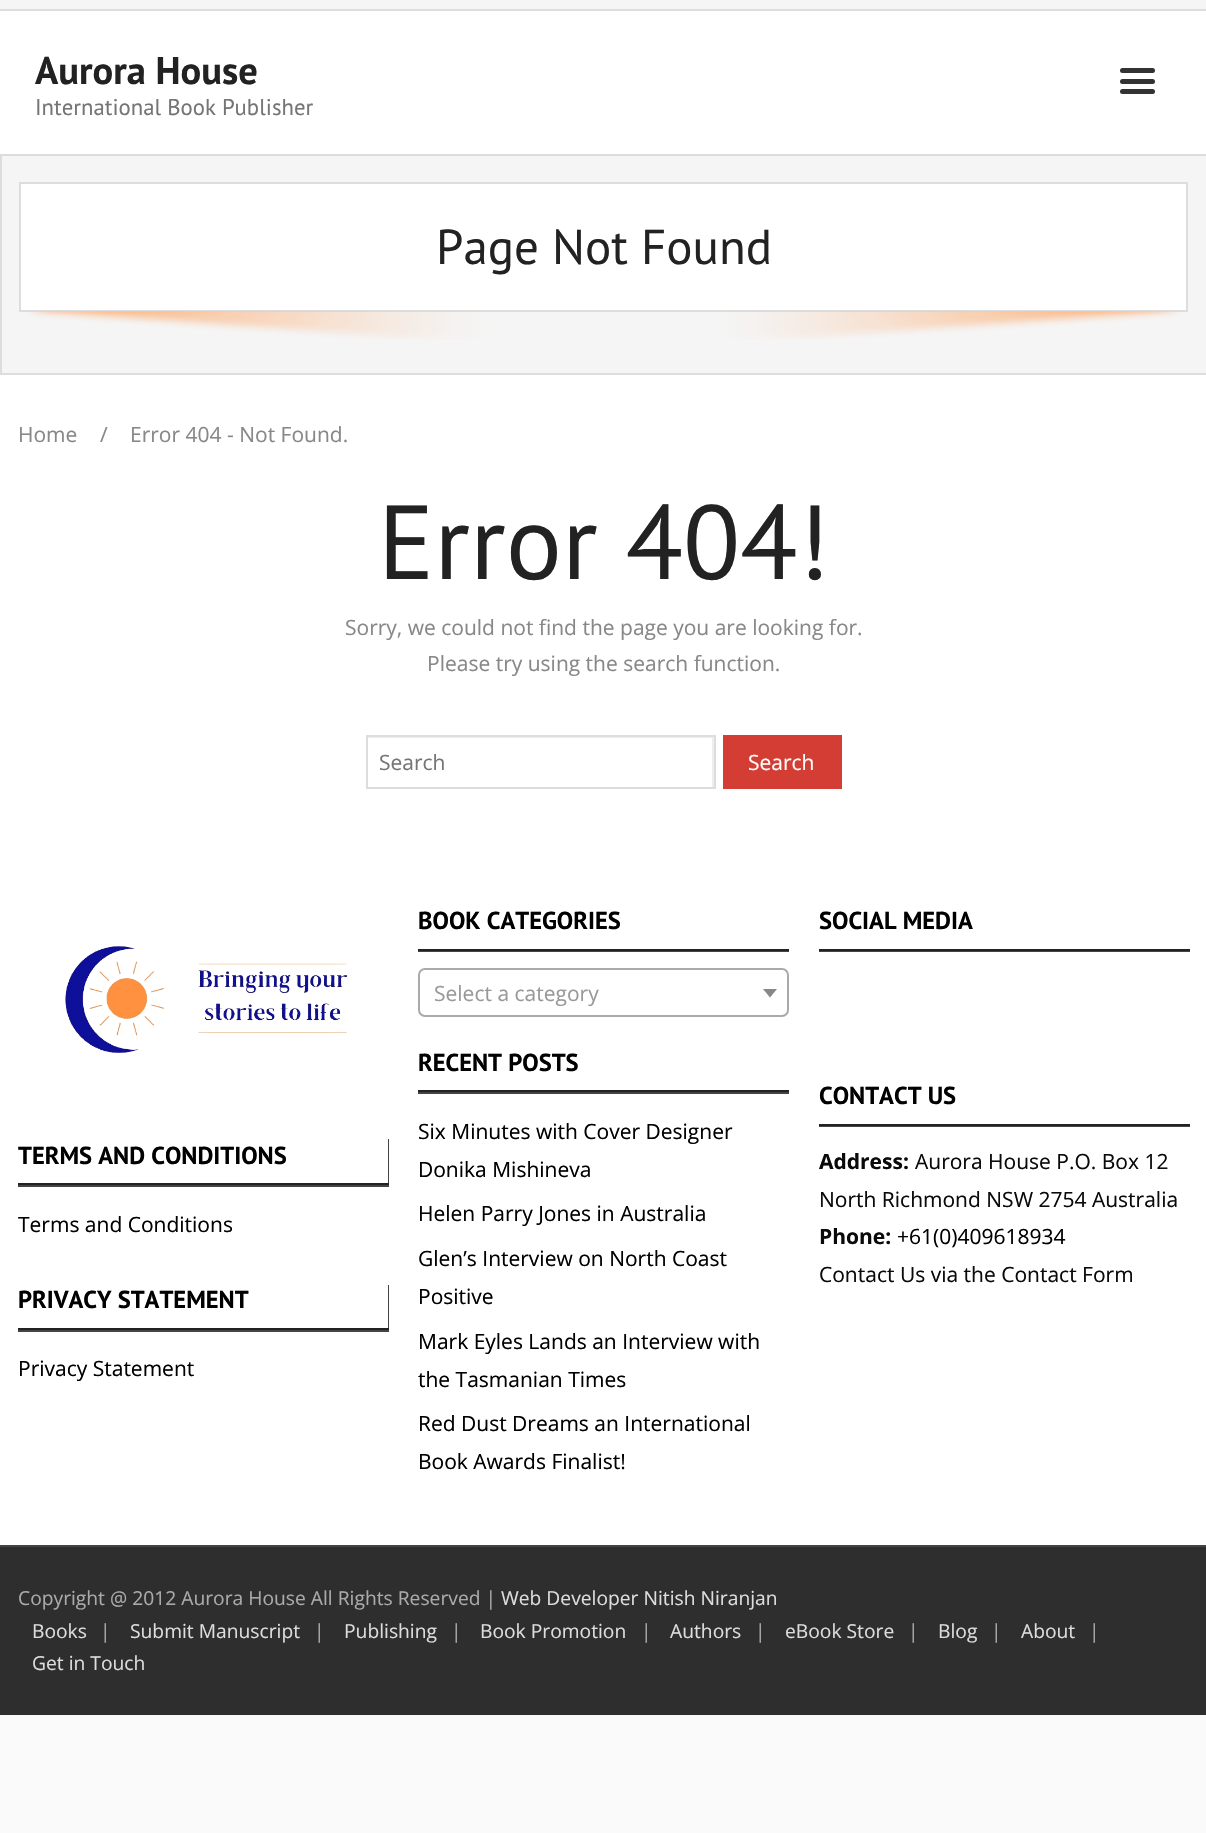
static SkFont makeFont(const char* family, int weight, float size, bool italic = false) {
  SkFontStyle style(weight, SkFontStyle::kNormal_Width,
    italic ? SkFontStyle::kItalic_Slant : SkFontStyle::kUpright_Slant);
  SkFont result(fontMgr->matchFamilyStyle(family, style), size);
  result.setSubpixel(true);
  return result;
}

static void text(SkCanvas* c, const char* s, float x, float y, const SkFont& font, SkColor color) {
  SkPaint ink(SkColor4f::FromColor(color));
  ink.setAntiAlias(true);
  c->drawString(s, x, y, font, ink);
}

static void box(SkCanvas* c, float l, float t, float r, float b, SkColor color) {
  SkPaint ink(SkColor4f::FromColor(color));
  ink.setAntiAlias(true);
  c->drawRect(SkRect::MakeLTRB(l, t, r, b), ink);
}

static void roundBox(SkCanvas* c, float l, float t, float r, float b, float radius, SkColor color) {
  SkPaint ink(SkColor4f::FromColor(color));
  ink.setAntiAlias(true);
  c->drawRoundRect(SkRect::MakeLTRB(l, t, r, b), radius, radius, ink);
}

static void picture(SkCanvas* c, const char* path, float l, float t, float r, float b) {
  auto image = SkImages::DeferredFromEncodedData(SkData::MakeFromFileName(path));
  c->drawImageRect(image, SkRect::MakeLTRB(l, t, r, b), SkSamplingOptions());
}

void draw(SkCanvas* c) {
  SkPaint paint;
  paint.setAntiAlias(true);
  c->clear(0xfffafafa);
  box(c, 0, 11, 1206, 1545, 0xffffffff);
  box(c, 0, 154, 1206, 156, 0xffdddddd);
  box(c, 0, 0, 1206, 9, 0xfff5f5f5);
  box(c, 0, 9, 1206, 11, 0xffdddddd);
  SkFont face1 = makeFont("PT Sans", 700, 38.5f);
  text(c, "Aurora House", 35, 84, face1, 0xff222222);
  SkFont face2 = makeFont("PT Sans", 400, 22.75f);
  text(c, "International Book Publisher", 35, 115, face2, 0xff757575);
  roundBox(c, 1120, 68, 1155, 73, 2.5f, 0xff333333);
  roundBox(c, 1120, 79, 1155, 84, 2.5f, 0xff333333);
  roundBox(c, 1120, 89, 1155, 94, 2.5f, 0xff333333);
  box(c, 2, 156, 1206, 373, 0xfff5f5f5);
  box(c, 0, 373, 1206, 375, 0xffdddddd);
  box(c, 0, 156, 2, 375, 0xffdddddd);
  paint.setColor(0xffffffff);
  c->drawRect(SkRect::MakeLTRB(20, 183, 1187, 311), paint);
  paint.setStyle(SkPaint::kStroke_Style);
  paint.setStrokeWidth(2);
  paint.setColor(0xffdddddd);
  c->drawRect(SkRect::MakeLTRB(20, 183, 1187, 311), paint);
  SkFont face3 = makeFont("PT Sans", 400, 49);
  text(c, "Page Not Found", 436, 264, face3, 0xff222222);
  picture(c, "img_01.png", 27, 311, 1181, 340);
  SkFont face4 = makeFont("Open Sans", 400, 21);
  text(c, "Home", 18, 442, face4, 0xff888888);
  text(c, "/", 100, 442, face4, 0xff888888);
  text(c, "Error 404 - Not Found.", 130, 442, face4, 0xff888888);
  SkFont face5 = makeFont("PT Sans", 400, 105);
  text(c, "Error 404!", 378, 579, face5, 0xff222222);
  text(c, "Sorry, we could not find the page you are looking for.", 345, 635, face4, 0xff888888);
  text(c, "Please try using the search function.", 427, 671, face4, 0xff888888);
  c->save();
  c->clipRect(SkRect::MakeLTRB(368, 737, 714, 788));
  paint.setStyle(SkPaint::kFill_Style);
  paint.setColor(0xffeeeeee);
  c->drawPath(SkPathBuilder(SkPathFillType::kEvenOdd).moveTo(194, 564).lineTo(887, 564).lineTo(887, 961).lineTo(194, 961).close().moveTo(366, 738).lineTo(712, 738).lineTo(712, 789).lineTo(366, 789).close().detach(), paint);
  c->restore();
  paint.setStyle(SkPaint::kStroke_Style);
  paint.setColor(0xffdddddd);
  c->drawRect(SkRect::MakeLTRB(367, 736, 715, 788), paint);
  text(c, "Search", 379, 770, face4, 0xff757575);
  box(c, 723, 735, 842, 789, 0xffd33d33);
  text(c, "Search", 748, 770, face4, 0xffffffff);
  picture(c, "img_02.png", 65, 946, 348, 1053);
  paint.setStyle(SkPaint::kFill_Style);
  paint.setColor(0xff444444);
  c->drawPath(SkPathBuilder().moveTo(18, 1185).lineTo(18, 1187).lineTo(389, 1187).lineTo(389, 1139).lineTo(388, 1139).lineTo(388, 1185).close().detach(), paint);
  box(c, 18, 1183, 389, 1185, 0xff222222);
  SkFont face6 = makeFont("PT Sans", 700, 24.5f);
  text(c, "TERMS AND CONDITIONS", 18, 1164, face6, 0xff000000);
  text(c, "Terms and Conditions", 18, 1232, face4, 0xff000000);
  c->drawPath(SkPathBuilder().moveTo(18, 1330).lineTo(18, 1332).lineTo(389, 1332).lineTo(389, 1285).lineTo(388, 1285).lineTo(388, 1330).close().detach(), paint);
  box(c, 18, 1328, 389, 1330, 0xff222222);
  text(c, "PRIVACY STATEMENT", 18, 1308, face6, 0xff000000);
  text(c, "Privacy Statement", 18, 1376, face4, 0xff000000);
  c->drawPath(SkPathBuilder().moveTo(418, 905).lineTo(418, 952).lineTo(789, 952).lineTo(789, 950).lineTo(418, 950).close().detach(), paint);
  box(c, 418, 949, 789, 951, 0xff222222);
  text(c, "BOOK CATEGORIES", 418, 929, face6, 0xff000000);
  paint.setStyle(SkPaint::kStroke_Style);
  paint.setColor(0xffaaaaaa);
  c->drawRoundRect(SkRect::MakeLTRB(419, 969, 788, 1016), 6, 6, paint);
  text(c, "Select a category", 434, 1001, face4, 0xff999999);
  paint.setStyle(SkPaint::kFill_Style);
  paint.setColor(0xff888888);
  c->drawPath(SkPathBuilder().moveTo(763, 989).lineTo(777, 989).lineTo(770, 997.5f).close().detach(), paint);
  paint.setColor(0xff444444);
  c->drawPath(SkPathBuilder().moveTo(418, 1047).lineTo(418, 1094).lineTo(789, 1094).lineTo(789, 1092).lineTo(418, 1092).close().detach(), paint);
  box(c, 418, 1090, 789, 1092, 0xff222222);
  text(c, "RECENT POSTS", 418, 1071, face6, 0xff000000);
  text(c, "Six Minutes with Cover Designer", 418, 1139, face4, 0xff000000);
  text(c, "Donika Mishineva", 418, 1177, face4, 0xff000000);
  text(c, "Helen Parry Jones in Australia", 418, 1221, face4, 0xff000000);
  text(c, "Glen’s Interview on North Coast", 418, 1266, face4, 0xff000000);
  text(c, "Positive", 418, 1304, face4, 0xff000000);
  text(c, "Mark Eyles Lands an Interview with", 418, 1349, face4, 0xff000000);
  text(c, "the Tasmanian Times", 418, 1387, face4, 0xff000000);
  text(c, "Red Dust Dreams an International", 418, 1431, face4, 0xff000000);
  text(c, "Book Awards Finalist!", 418, 1469, face4, 0xff000000);
  box(c, 819, 951, 1190, 952, 0xff444444);
  box(c, 819, 949, 1190, 951, 0xff222222);
  text(c, "SOCIAL MEDIA", 819, 929, face6, 0xff000000);
  box(c, 819, 1126, 1190, 1127, 0xff444444);
  box(c, 819, 1124, 1190, 1126, 0xff222222);
  text(c, "CONTACT US", 819, 1104, face6, 0xff000000);
  SkFont face7 = makeFont("Open Sans", 700, 21);
  text(c, "Address:", 819, 1169, face7, 0xff0a0a0a);
  text(c, "Aurora House P.O. Box 12", 915, 1169, face4, 0xff0a0a0a);
  text(c, "North Richmond NSW 2754 Australia", 819, 1207, face4, 0xff0a0a0a);
  text(c, "Phone:", 819, 1244, face7, 0xff0a0a0a);
  text(c, "+61(0)409618934", 897, 1244, face4, 0xff000000);
  text(c, "Contact Us via the Contact Form", 819, 1282, face4, 0xff0a0a0a);
  box(c, 0, 1547, 1206, 1715, 0xff2e2e2e);
  box(c, 0, 1545, 1206, 1547, 0xff444444);
  SkFont face8 = makeFont("Open Sans", 400, 19.25f);
  text(c, "Copyright @ 2012 Aurora House All Rights Reserved |", 18, 1605, face8, 0xffaaaaaa);
  text(c, "Web Developer Nitish Niranjan", 501, 1605, face8, 0xffdddddd);
  text(c, "Books", 32, 1638, face8, 0xffdddddd);
  text(c, "|", 100, 1638, face8, 0xffaaaaaa);
  text(c, "Submit Manuscript", 130, 1638, face8, 0xffdddddd);
  text(c, "|", 314, 1638, face8, 0xffaaaaaa);
  text(c, "Publishing", 344, 1638, face8, 0xffdddddd);
  text(c, "|", 451, 1638, face8, 0xffaaaaaa);
  text(c, "Book Promotion", 480, 1638, face8, 0xffdddddd);
  text(c, "|", 641, 1638, face8, 0xffaaaaaa);
  text(c, "Authors", 670, 1638, face8, 0xffdddddd);
  text(c, "|", 755, 1638, face8, 0xffaaaaaa);
  text(c, "eBook Store", 785, 1638, face8, 0xffdddddd);
  text(c, "|", 908, 1638, face8, 0xffaaaaaa);
  text(c, "Blog", 938, 1638, face8, 0xffdddddd);
  text(c, "|", 991, 1638, face8, 0xffaaaaaa);
  text(c, "About", 1021, 1638, face8, 0xffdddddd);
  text(c, "|", 1089, 1638, face8, 0xffaaaaaa);
  text(c, "Get in Touch", 32, 1670, face8, 0xffdddddd);
}
